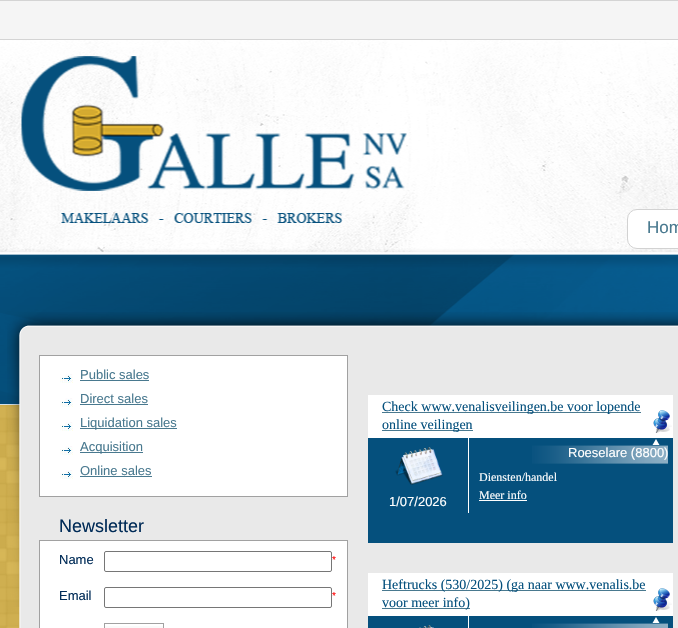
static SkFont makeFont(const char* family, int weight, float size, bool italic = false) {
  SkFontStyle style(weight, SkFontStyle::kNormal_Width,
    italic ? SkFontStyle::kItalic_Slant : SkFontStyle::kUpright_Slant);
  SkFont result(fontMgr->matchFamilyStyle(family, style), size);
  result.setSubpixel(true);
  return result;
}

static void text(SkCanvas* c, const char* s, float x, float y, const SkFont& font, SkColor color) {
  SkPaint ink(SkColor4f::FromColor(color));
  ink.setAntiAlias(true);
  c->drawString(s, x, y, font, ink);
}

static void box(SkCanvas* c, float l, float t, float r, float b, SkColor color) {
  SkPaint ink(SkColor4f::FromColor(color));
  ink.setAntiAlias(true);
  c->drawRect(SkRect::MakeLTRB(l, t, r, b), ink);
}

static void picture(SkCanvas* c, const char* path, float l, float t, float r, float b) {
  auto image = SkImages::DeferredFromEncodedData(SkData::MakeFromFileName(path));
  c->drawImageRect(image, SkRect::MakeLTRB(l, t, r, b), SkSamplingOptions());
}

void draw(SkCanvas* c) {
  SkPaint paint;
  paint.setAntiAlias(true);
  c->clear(0xffffffff);
  picture(c, "img_01.png", 0, 0, 678, 405);
  paint.setColor(0xffffffff);
  c->drawRoundRect(SkRect::MakeLTRB(627.5f, 209.5f, 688.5f, 248.5f), 9.5f, 9.5f, paint);
  paint.setStyle(SkPaint::kStroke_Style);
  paint.setStrokeWidth(1);
  paint.setColor(0xffd2d2d2);
  c->drawRoundRect(SkRect::MakeLTRB(627.5f, 209.5f, 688.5f, 248.5f), 9.5f, 9.5f, paint);
  SkFont face1 = makeFont("Liberation Sans", 400, 17);
  text(c, "Hom", 647, 233, face1, 0xff49798f);
  picture(c, "img_02.png", 0, 405, 20, 628);
  picture(c, "img_03.png", 7, 312, 678, 607);
  picture(c, "img_04.png", 19, 325, 678, 335);
  picture(c, "img_05.png", 19, 335, 678, 628);
  paint.setStyle(SkPaint::kFill_Style);
  paint.setColor(0xffffffff);
  c->drawRect(SkRect::MakeLTRB(39.5f, 355.5f, 347.5f, 496.5f), paint);
  paint.setStyle(SkPaint::kStroke_Style);
  paint.setColor(0xffa1a1a1);
  c->drawRect(SkRect::MakeLTRB(39.5f, 355.5f, 347.5f, 496.5f), paint);
  picture(c, "img_06.png", 60, 374, 73, 383);
  SkFont face2 = makeFont("Liberation Sans", 400, 13);
  text(c, "Public sales", 80, 379, face2, 0xff49798f);
  box(c, 80, 380, 149, 381, 0xff49798f);
  picture(c, "img_06.png", 60, 398, 73, 407);
  text(c, "Direct sales", 80, 403, face2, 0xff49798f);
  box(c, 80, 404, 148, 405, 0xff49798f);
  picture(c, "img_06.png", 60, 422, 73, 431);
  box(c, 80, 428, 177, 429, 0xff49798f);
  text(c, "Liquidation sales", 80, 427, face2, 0xff49798f);
  picture(c, "img_06.png", 60, 446, 73, 455);
  box(c, 80, 452, 143, 453, 0xff49798f);
  text(c, "Acquisition", 80, 451, face2, 0xff49798f);
  picture(c, "img_06.png", 60, 470, 73, 479);
  text(c, "Online sales", 80, 475, face2, 0xff49798f);
  box(c, 80, 476, 152, 477, 0xff49798f);
  SkFont face3 = makeFont("Liberation Sans", 400, 18);
  text(c, "Newsletter", 59, 532, face3, 0xff002b57);
  paint.setStyle(SkPaint::kFill_Style);
  paint.setColor(0xffffffff);
  c->drawRect(SkRect::MakeLTRB(39.5f, 540.5f, 347.5f, 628.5f), paint);
  paint.setStyle(SkPaint::kStroke_Style);
  paint.setColor(0xffa1a1a1);
  c->drawRect(SkRect::MakeLTRB(39.5f, 540.5f, 347.5f, 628.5f), paint);
  text(c, "Name", 59, 564, face2, 0xff002b57);
  paint.setColor(0xff767676);
  c->drawRoundRect(SkRect::MakeLTRB(104.5f, 551.5f, 331.5f, 571.5f), 1.5f, 1.5f, paint);
  SkFont face4 = makeFont("Liberation Sans", 400, 10);
  text(c, "*", 332, 563, face4, 0xffff0000);
  text(c, "Email", 59, 600, face2, 0xff002b57);
  c->drawRoundRect(SkRect::MakeLTRB(104.5f, 587.5f, 331.5f, 607.5f), 1.5f, 1.5f, paint);
  text(c, "*", 332, 599, face4, 0xffff0000);
  box(c, 104, 626, 164, 628, 0xfffafafa);
  paint.setColor(0xffa1a1a1);
  c->drawRect(SkRect::MakeLTRB(104.5f, 623.5f, 163.5f, 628.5f), paint);
  box(c, 368, 395, 673, 438, 0xffffffff);
  box(c, 382, 412, 641, 413, 0xff49798f);
  SkFont face5 = makeFont("Liberation Serif", 400, 14);
  text(c, "Check www.venalisveilingen.be voor lopende", 382, 411, face5, 0xff05507d);
  box(c, 382, 430, 473, 431, 0xff49798f);
  text(c, "online veilingen", 382, 429, face5, 0xff05507d);
  picture(c, "img_07.png", 653, 410, 672, 433);
  box(c, 368, 438, 673, 543, 0xff05507d);
  picture(c, "img_08.png", 532, 439, 668, 464);
  text(c, "Roeselare (8800)", 568, 457, face2, 0xffffffff);
  SkFont face6 = makeFont("Liberation Serif", 400, 12);
  text(c, "Diensten/handel", 479, 481, face6, 0xffffffff);
  text(c, "Meer info", 479, 499, face6, 0xffffffff);
  box(c, 479, 500, 527, 501, 0xffffffff);
  box(c, 468, 438, 469, 513, 0xffffffff);
  picture(c, "img_09.png", 395, 447, 443, 485);
  text(c, "1/07/2026", 389, 506, face2, 0xffffffff);
  box(c, 368, 573, 673, 616, 0xffffffff);
  box(c, 382, 590, 646, 591, 0xff49798f);
  text(c, "Heftrucks (530/2025) (ga naar www.venalis.be", 382, 589, face5, 0xff05507d);
  box(c, 382, 608, 470, 609, 0xff49798f);
  text(c, "voor meer info)", 382, 607, face5, 0xff05507d);
  picture(c, "img_07.png", 653, 588, 672, 611);
  box(c, 368, 616, 673, 628, 0xff05507d);
  picture(c, "img_10.png", 532, 617, 668, 628);
  box(c, 468, 616, 469, 628, 0xffffffff);
  picture(c, "img_11.png", 419, 625, 434, 628);
}
